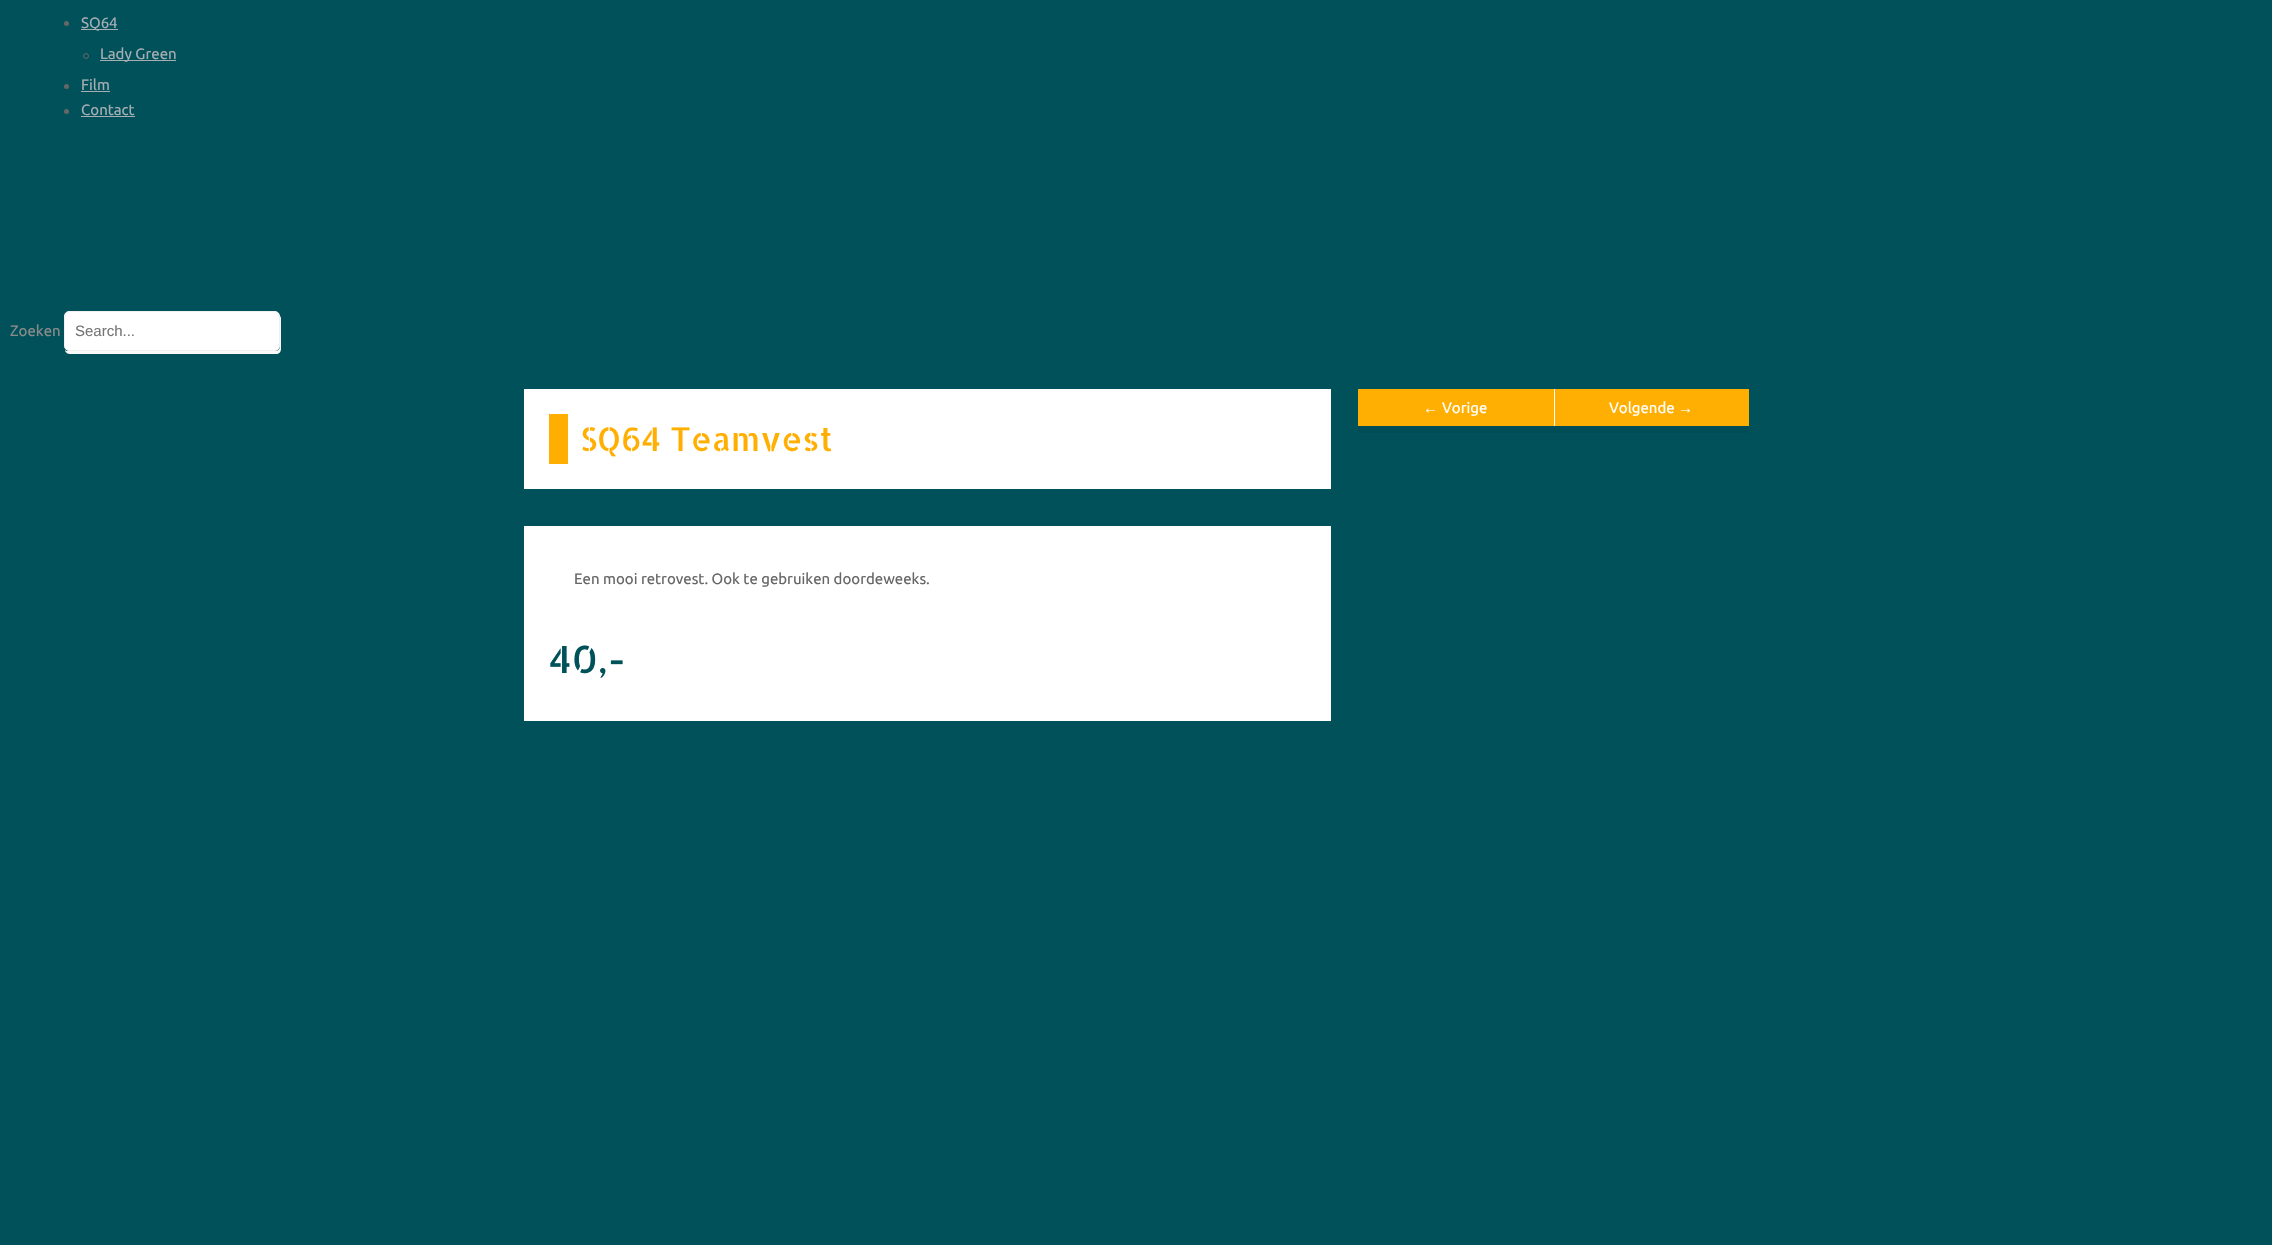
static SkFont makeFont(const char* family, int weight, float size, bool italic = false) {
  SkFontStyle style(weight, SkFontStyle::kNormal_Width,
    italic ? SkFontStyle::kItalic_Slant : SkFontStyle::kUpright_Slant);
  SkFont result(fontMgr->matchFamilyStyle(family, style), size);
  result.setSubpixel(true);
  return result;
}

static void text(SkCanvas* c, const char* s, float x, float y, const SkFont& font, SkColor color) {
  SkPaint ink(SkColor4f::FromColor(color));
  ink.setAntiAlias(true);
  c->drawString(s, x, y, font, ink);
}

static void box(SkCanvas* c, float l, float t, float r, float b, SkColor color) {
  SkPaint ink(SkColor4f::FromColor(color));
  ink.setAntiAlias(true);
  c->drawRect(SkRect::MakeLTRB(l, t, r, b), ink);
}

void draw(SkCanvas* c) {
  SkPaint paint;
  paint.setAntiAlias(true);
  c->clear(0xff01515a);
  paint.setColor(0xff666666);
  c->drawCircle(66.5f, 23.5f, 2.5f, paint);
  box(c, 81, 29, 118, 30, 0xffa5aeb3);
  SkFont face1 = makeFont("Ubuntu", 400, 15);
  text(c, "SQ64", 81, 28, face1, 0xffa5aeb3);
  paint.setStyle(SkPaint::kStroke_Style);
  paint.setStrokeWidth(1);
  c->drawCircle(86, 56, 2.5f, paint);
  box(c, 100, 60, 176, 61, 0xffa5aeb3);
  text(c, "Lady Green", 100, 59, face1, 0xffa5aeb3);
  paint.setStyle(SkPaint::kFill_Style);
  c->drawCircle(66.5f, 86.5f, 2.5f, paint);
  text(c, "Film", 81, 90, face1, 0xffa5aeb3);
  box(c, 81, 91, 110, 92, 0xffa5aeb3);
  c->drawCircle(66.5f, 111.5f, 2.5f, paint);
  text(c, "Contact", 81, 115, face1, 0xffa5aeb3);
  box(c, 81, 116, 135, 117, 0xffa5aeb3);
  text(c, "Zoeken", 10, 336, face1, 0xff8b8b8b);
  paint.setColor(0xfff9f9f9);
  c->drawPath(SkPathBuilder().moveTo(65, 350).cubicTo(65, 352, 67, 354, 70, 354).lineTo(276, 354).cubicTo(279, 354, 281, 352, 281, 349).lineTo(281, 319).cubicTo(281, 318, 281, 317, 280, 316).lineTo(280, 346).cubicTo(280, 349, 278, 351, 275, 351).lineTo(69, 351).cubicTo(67, 351, 66, 351, 65, 350).close().detach(), paint);
  paint.setColor(0xffffffff);
  c->drawRoundRect(SkRect::MakeLTRB(64.5f, 311.5f, 279.5f, 350.5f), 4.5f, 4.5f, paint);
  paint.setStyle(SkPaint::kStroke_Style);
  paint.setColor(0xfff0f0f0);
  c->drawRoundRect(SkRect::MakeLTRB(64.5f, 311.5f, 279.5f, 350.5f), 4.5f, 4.5f, paint);
  SkFont face2 = makeFont("Liberation Sans", 400, 15);
  text(c, "Search...", 75, 336, face2, 0xff757575);
  paint.setStyle(SkPaint::kFill_Style);
  paint.setColor(0xff014d56);
  c->drawPath(SkPathBuilder().moveTo(1358, 426).lineTo(1358, 433).lineTo(1554, 433).lineTo(1554, 395).lineTo(1554, 426).close().detach(), paint);
  box(c, 1358, 389, 1554, 426, 0xffffaf01);
  SkFont face3 = makeFont("Liberation Serif", 400, 15);
  text(c, "←", 1423, 413, face3, 0xffffffff);
  text(c, "Vorige", 1442, 413, face1, 0xffffffff);
  c->drawPath(SkPathBuilder().moveTo(1554, 426).lineTo(1554, 433).lineTo(1749, 433).lineTo(1749, 395).lineTo(1749, 426).close().detach(), paint);
  box(c, 1555, 389, 1749, 426, 0xffffaf01);
  box(c, 1554, 389, 1555, 426, 0xffffffff);
  text(c, "Volgende", 1609, 413, face1, 0xffffffff);
  text(c, "→", 1678, 413, face3, 0xffffffff);
  box(c, 524, 389, 1331, 489, 0xffffffff);
  box(c, 549, 414, 568, 464, 0xffffaf01);
  SkFont face4 = makeFont("Allerta Stencil", 400, 32.5f);
  text(c, "SQ64 Teamvest", 580, 451, face4, 0xffffaf01);
  box(c, 524, 526, 1331, 721, 0xffffffff);
  text(c, "Een mooi retrovest. Ook te gebruiken doordeweeks.", 574, 584, face1, 0xff666666);
  SkFont face5 = makeFont("Allerta Stencil", 400, 37.5f);
  text(c, "40,-", 549, 673, face5, 0xff005259);
}
